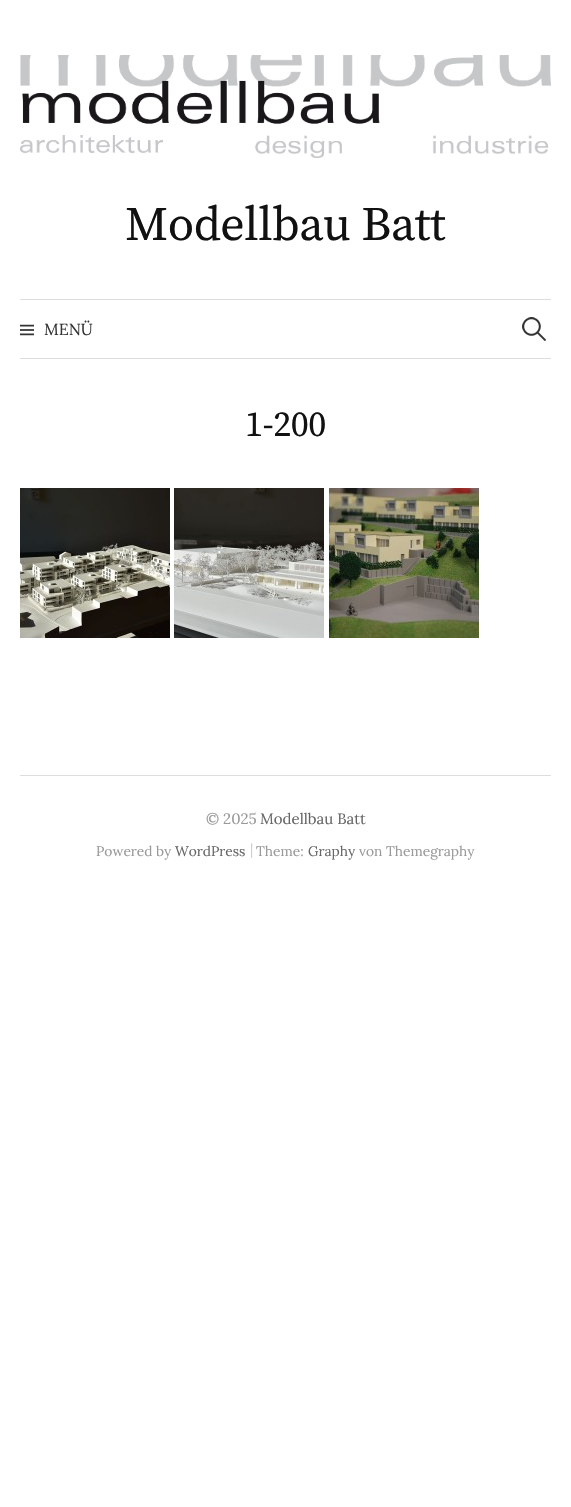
static SkFont makeFont(const char* family, int weight, float size, bool italic = false) {
  SkFontStyle style(weight, SkFontStyle::kNormal_Width,
    italic ? SkFontStyle::kItalic_Slant : SkFontStyle::kUpright_Slant);
  SkFont result(fontMgr->matchFamilyStyle(family, style), size);
  result.setSubpixel(true);
  return result;
}

static void text(SkCanvas* c, const char* s, float x, float y, const SkFont& font, SkColor color) {
  SkPaint ink(SkColor4f::FromColor(color));
  ink.setAntiAlias(true);
  c->drawString(s, x, y, font, ink);
}

static void spacedText(SkCanvas* c, const char* s, float x, float y, const SkFont& font, const SkPaint& ink, float letter, float word) {
  std::vector<SkGlyphID> glyphs(font.countText(s, strlen(s), SkTextEncoding::kUTF8));
  std::vector<float> xs(glyphs.size());
  font.textToGlyphs(s, strlen(s), SkTextEncoding::kUTF8, glyphs);
  font.getXPos(glyphs, xs, x);
  float extra = 0;
  for (size_t i = 0; i < glyphs.size(); i++) {
    xs[i] += extra;
    extra += letter + word * (glyphs[i] == font.unicharToGlyph(' '));
  }
  c->drawTextBlob(SkTextBlob::MakeFromPosHGlyphs(glyphs, xs, y, font), 0, 0, ink);
}

static void box(SkCanvas* c, float l, float t, float r, float b, SkColor color) {
  SkPaint ink(SkColor4f::FromColor(color));
  ink.setAntiAlias(true);
  c->drawRect(SkRect::MakeLTRB(l, t, r, b), ink);
}

static void picture(SkCanvas* c, const char* path, float l, float t, float r, float b) {
  auto image = SkImages::DeferredFromEncodedData(SkData::MakeFromFileName(path));
  c->drawImageRect(image, SkRect::MakeLTRB(l, t, r, b), SkSamplingOptions());
}

void draw(SkCanvas* c) {
  SkPaint paint;
  paint.setAntiAlias(true);
  c->clear(0xffffffff);
  picture(c, "img_01.png", 20, 55, 551, 158);
  SkFont face1 = makeFont("Source Serif Pro", 400, 48);
  paint.setColor(0xff111111);
  spacedText(c, "Modellbau Batt", 125, 240, face1, paint, -0.5f, 0);
  box(c, 20, 299, 551, 300, 0xffdddddd);
  box(c, 20, 358, 551, 359, 0xffdddddd);
  picture(c, "img_02.png", 20, 324, 34, 336);
  SkFont face2 = makeFont("Lora", 400, 16);
  text(c, "MENÜ", 44, 335, face2, 0xff333333);
  picture(c, "img_03.png", 522, 317, 546, 341);
  SkFont face3 = makeFont("Source Serif Pro", 400, 36);
  spacedText(c, "1-200", 245, 436, face3, paint, -0.5f, 0);
  picture(c, "img_04.png", 20, 488, 170, 638);
  picture(c, "img_05.png", 174, 488, 324, 638);
  picture(c, "img_06.png", 329, 488, 479, 638);
  box(c, 20, 775, 551, 776, 0xffdddddd);
  SkFont face4 = makeFont("Lora", 400, 15);
  text(c, "© 2025", 206, 824, face4, 0xff999999);
  text(c, "Modellbau Batt", 260, 824, face4, 0xff666666);
  SkFont face5 = makeFont("Lora", 400, 13.75f);
  text(c, "Powered by", 96, 856, face5, 0xff999999);
  text(c, "WordPress", 175, 856, face5, 0xff666666);
  text(c, "|", 250, 854, face5, 0xffcccccc);
  text(c, "Theme:", 256, 856, face5, 0xff999999);
  text(c, "Graphy", 308, 856, face5, 0xff666666);
  text(c, "von Themegraphy", 359, 856, face5, 0xff999999);
}
